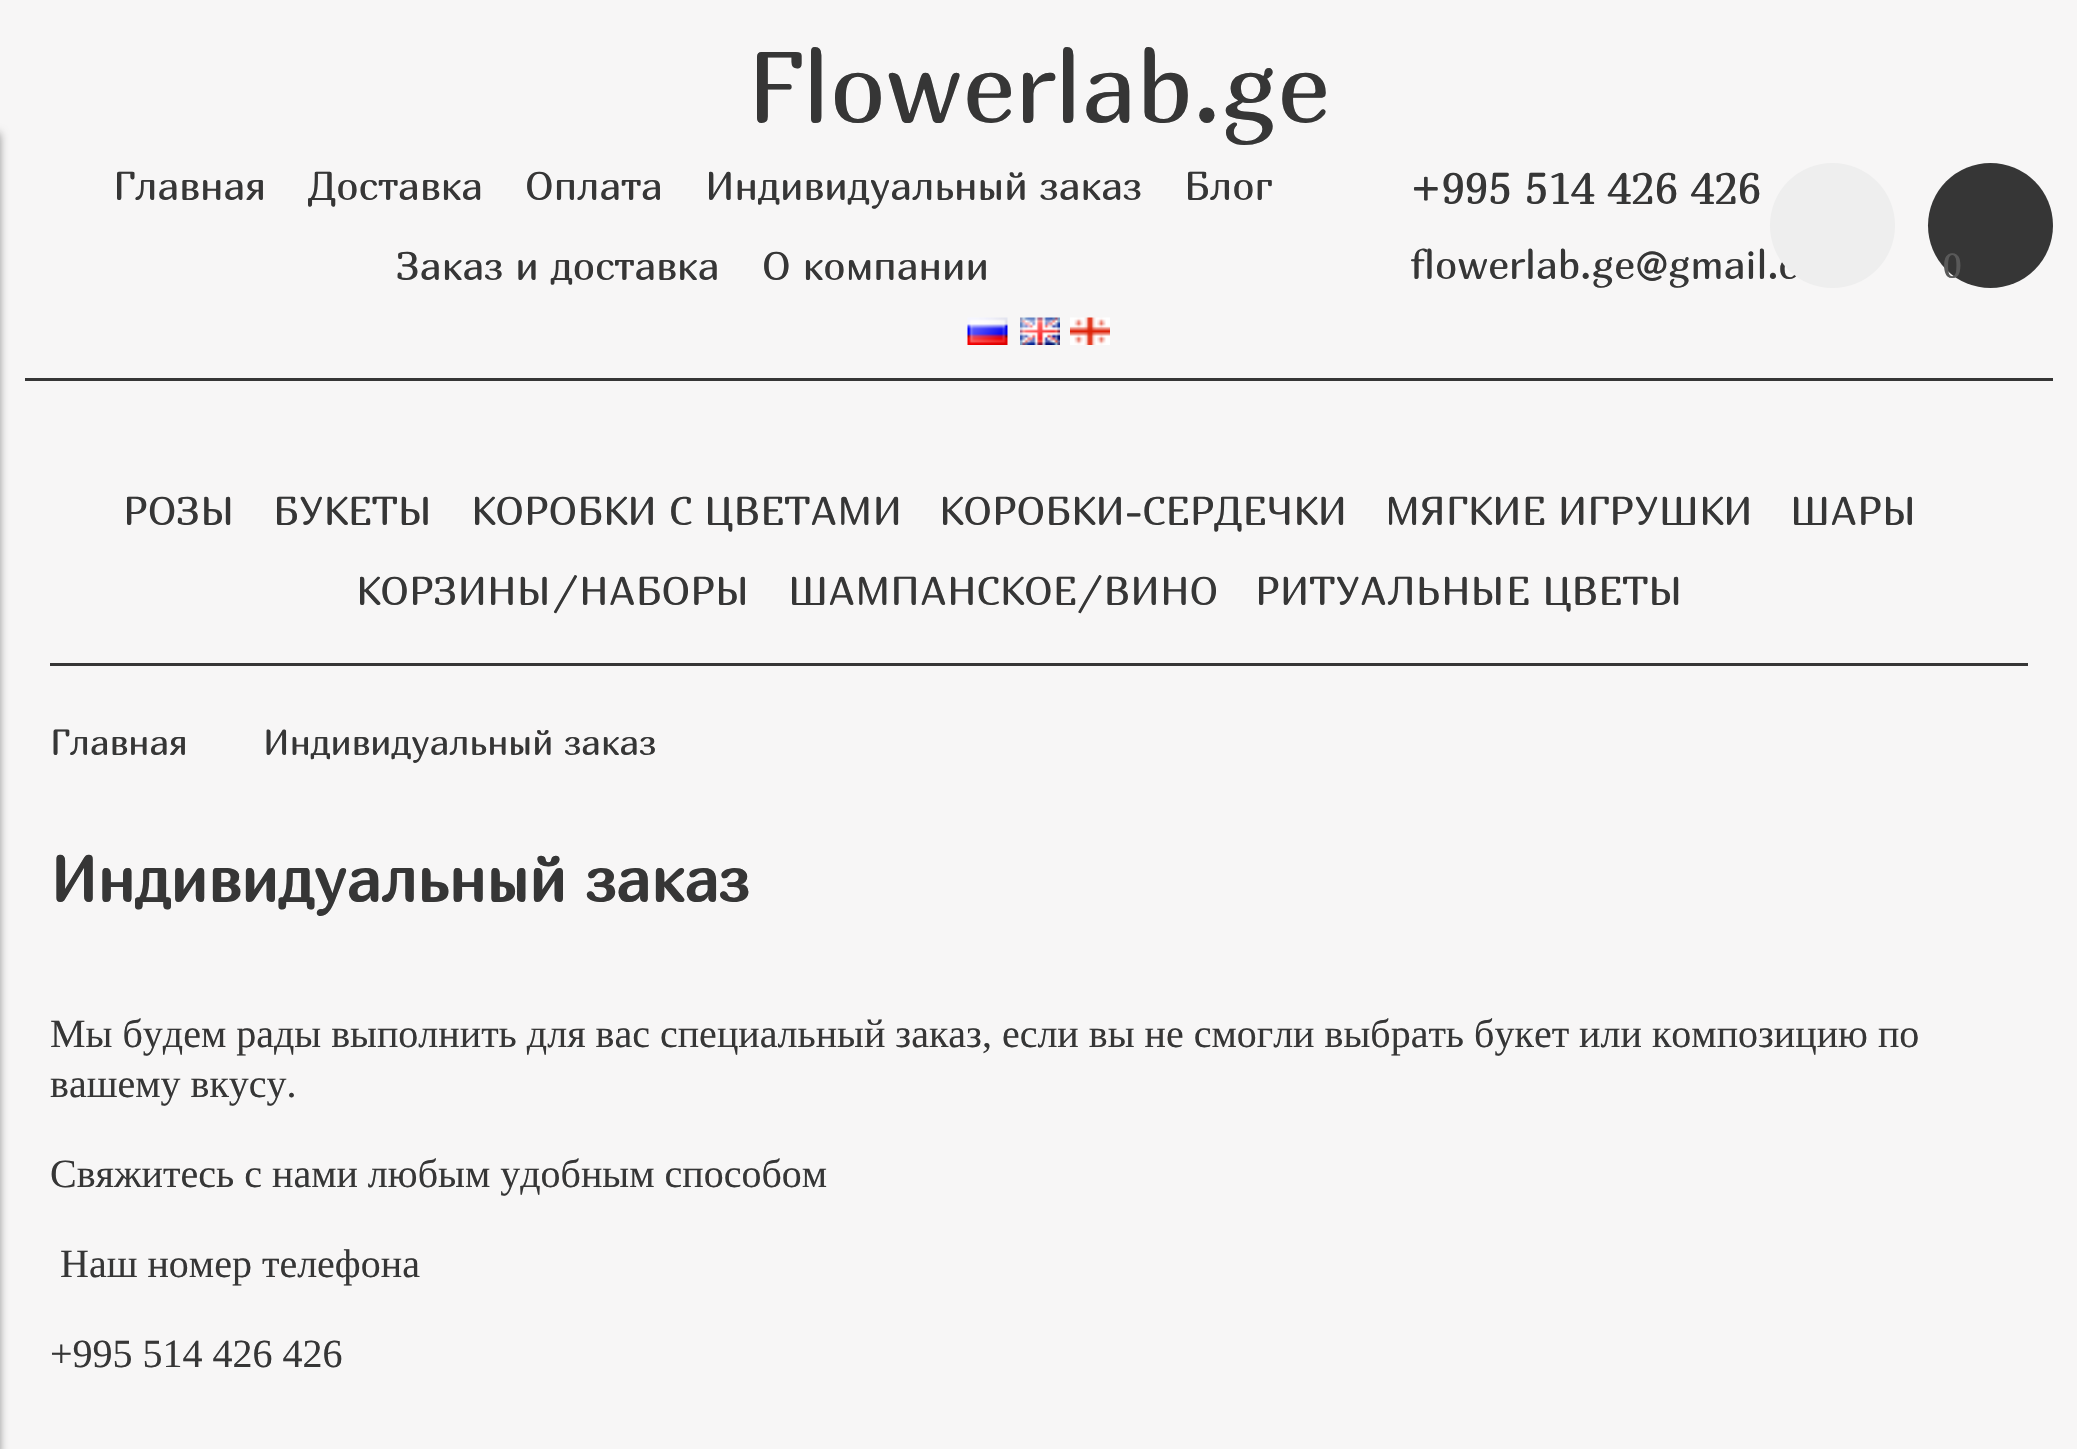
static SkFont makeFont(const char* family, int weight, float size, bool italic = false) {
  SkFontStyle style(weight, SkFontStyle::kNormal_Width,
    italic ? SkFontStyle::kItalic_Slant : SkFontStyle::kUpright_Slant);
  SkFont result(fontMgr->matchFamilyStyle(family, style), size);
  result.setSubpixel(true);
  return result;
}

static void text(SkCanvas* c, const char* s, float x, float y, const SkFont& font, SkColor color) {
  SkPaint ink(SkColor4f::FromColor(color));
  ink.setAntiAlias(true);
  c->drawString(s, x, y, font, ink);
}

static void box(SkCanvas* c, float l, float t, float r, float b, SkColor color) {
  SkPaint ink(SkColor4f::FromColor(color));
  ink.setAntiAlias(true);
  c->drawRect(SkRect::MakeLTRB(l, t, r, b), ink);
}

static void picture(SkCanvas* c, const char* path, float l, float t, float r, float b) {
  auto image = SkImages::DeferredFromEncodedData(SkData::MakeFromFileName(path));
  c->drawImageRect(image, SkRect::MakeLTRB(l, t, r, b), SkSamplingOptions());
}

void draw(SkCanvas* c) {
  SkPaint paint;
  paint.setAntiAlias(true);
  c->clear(0xfff7f6f6);
  paint.setColor(0x66000000);
  paint.setMaskFilter(SkMaskFilter::MakeBlur(kNormal_SkBlurStyle, 4));
  c->drawRect(SkRect::MakeLTRB(-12, 133, 0, 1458), paint);
  paint.setMaskFilter(nullptr);
  SkFont face1 = makeFont("Marmelad", 400, 100);
  text(c, "Flowerlab.ge", 747, 123, face1, 0xff363636);
  SkFont face2 = makeFont("Marmelad", 400, 40);
  text(c, "Главная", 113, 200, face2, 0xff363636);
  text(c, "Доставка", 308, 200, face2, 0xff363636);
  text(c, "Оплата", 525, 200, face2, 0xff363636);
  text(c, "Индивидуальный заказ", 705, 200, face2, 0xff363636);
  text(c, "Блог", 1184, 200, face2, 0xff363636);
  text(c, "Заказ и доставка", 396, 280, face2, 0xff363636);
  text(c, "О компании", 762, 280, face2, 0xff363636);
  SkFont face3 = makeFont("Marmelad", 400, 44);
  text(c, "+995 514 426 426", 1410, 204, face3, 0xff363636);
  text(c, "flowerlab.ge@gmail.c", 1410, 279, face2, 0xff363636);
  paint.setColor(0xffeeeeee);
  c->drawCircle(1832.5f, 225.5f, 62.5f, paint);
  paint.setColor(0xff363636);
  c->drawCircle(1990.5f, 225.5f, 62.5f, paint);
  SkFont face4 = makeFont("Marmelad", 400, 35);
  text(c, "0", 1943, 278, face4, 0xff595959);
  picture(c, "img_01.png", 967, 317, 1008, 345);
  picture(c, "img_02.png", 1020, 317, 1060, 345);
  picture(c, "img_03.png", 1070, 317, 1110, 345);
  box(c, 25, 378, 2053, 381, 0xff363636);
  text(c, "РОЗЫ", 123, 525, face2, 0xff363636);
  text(c, "БУКЕТЫ", 273, 525, face2, 0xff363636);
  text(c, "КОРОБКИ С ЦВЕТАМИ", 471, 525, face2, 0xff363636);
  text(c, "КОРОБКИ-СЕРДЕЧКИ", 939, 525, face2, 0xff363636);
  text(c, "МЯГКИЕ ИГРУШКИ", 1385, 525, face2, 0xff363636);
  text(c, "ШАРЫ", 1790, 525, face2, 0xff363636);
  text(c, "КОРЗИНЫ/НАБОРЫ", 356, 605, face2, 0xff363636);
  text(c, "ШАМПАНСКОЕ/ВИНО", 788, 605, face2, 0xff363636);
  text(c, "РИТУАЛЬНЫЕ ЦВЕТЫ", 1255, 605, face2, 0xff363636);
  box(c, 50, 663, 2028, 666, 0xff363636);
  SkFont face5 = makeFont("Marmelad", 400, 36);
  text(c, "Главная", 50, 755, face5, 0xff363636);
  text(c, "Индивидуальный заказ", 263, 755, face5, 0xff363636);
  SkFont face6 = makeFont("Marmelad", 700, 64);
  text(c, "Индивидуальный заказ", 50, 902, face6, 0xff363636);
  SkFont face7 = makeFont("Liberation Serif", 400, 40);
  text(c, "Мы будем рады выполнить для вас специальный заказ, если вы не смогли выбрать букет или композицию по", 50, 1047, face7, 0xff363636);
  text(c, "вашему вкусу.", 50, 1097, face7, 0xff363636);
  text(c, "Свяжитесь с нами любым удобным способом", 50, 1187, face7, 0xff363636);
  text(c, "Наш номер телефона", 60, 1277, face7, 0xff363636);
  text(c, "+995 514 426 426", 50, 1367, face7, 0xff363636);
}
